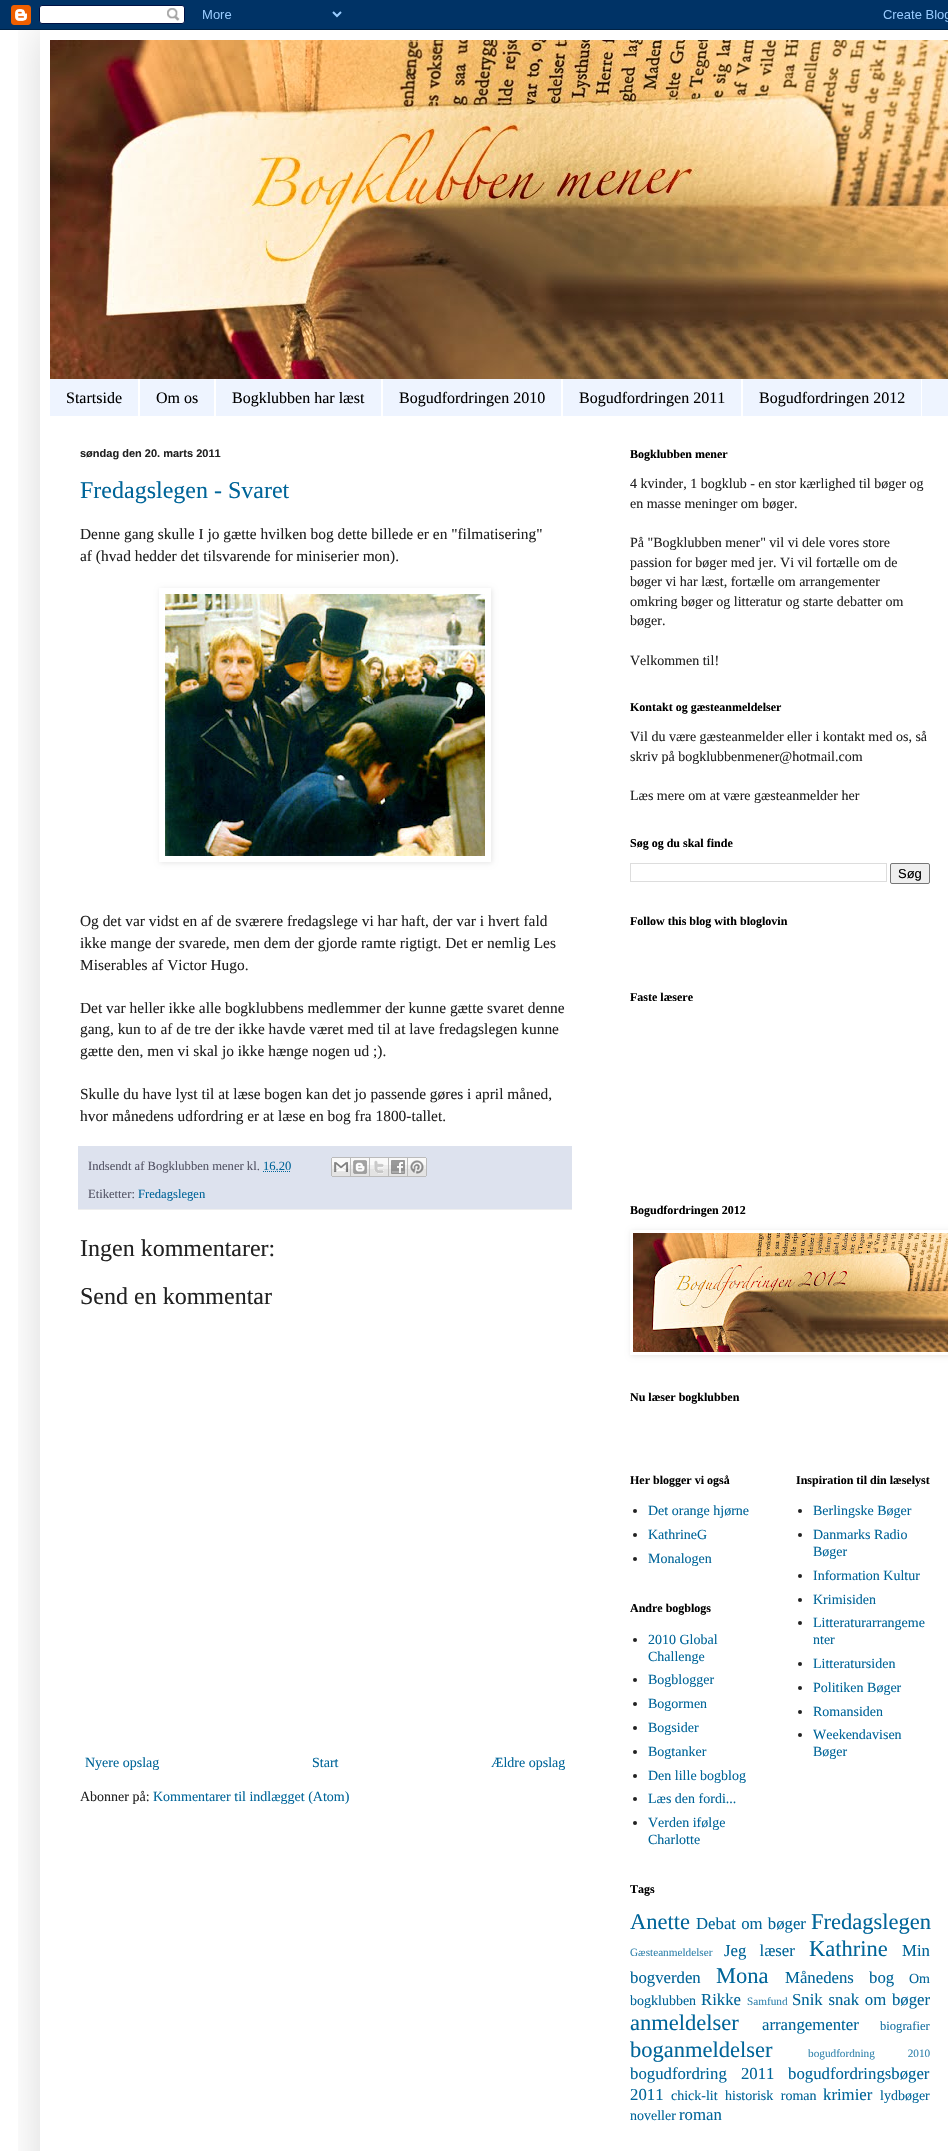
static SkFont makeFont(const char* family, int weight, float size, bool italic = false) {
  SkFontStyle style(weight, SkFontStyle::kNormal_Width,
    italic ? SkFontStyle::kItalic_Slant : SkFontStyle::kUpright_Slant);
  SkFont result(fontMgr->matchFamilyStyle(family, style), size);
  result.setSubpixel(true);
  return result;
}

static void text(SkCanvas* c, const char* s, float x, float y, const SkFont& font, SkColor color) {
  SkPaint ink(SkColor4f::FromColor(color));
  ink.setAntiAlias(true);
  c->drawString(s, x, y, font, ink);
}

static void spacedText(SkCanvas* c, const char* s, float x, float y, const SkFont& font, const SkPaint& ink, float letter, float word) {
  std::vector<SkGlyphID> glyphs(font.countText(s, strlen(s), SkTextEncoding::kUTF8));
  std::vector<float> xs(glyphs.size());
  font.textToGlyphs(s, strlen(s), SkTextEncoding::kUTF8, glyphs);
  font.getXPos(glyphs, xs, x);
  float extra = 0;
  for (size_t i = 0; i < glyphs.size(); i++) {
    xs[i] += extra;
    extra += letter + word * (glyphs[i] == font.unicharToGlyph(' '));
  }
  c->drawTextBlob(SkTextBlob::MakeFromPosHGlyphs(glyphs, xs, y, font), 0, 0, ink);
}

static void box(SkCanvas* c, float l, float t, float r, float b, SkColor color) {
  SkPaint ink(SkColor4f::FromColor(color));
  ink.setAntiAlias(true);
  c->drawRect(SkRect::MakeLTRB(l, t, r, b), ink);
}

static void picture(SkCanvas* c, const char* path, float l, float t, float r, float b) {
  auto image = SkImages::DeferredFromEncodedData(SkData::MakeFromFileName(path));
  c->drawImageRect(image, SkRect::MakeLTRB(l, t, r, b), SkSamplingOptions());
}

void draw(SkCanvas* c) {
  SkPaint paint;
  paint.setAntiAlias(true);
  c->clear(0xffffffff);
  c->save();
  c->clipRect(SkRect::MakeLTRB(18, 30, 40, 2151));
  paint.setColor(0x26000000);
  paint.setMaskFilter(SkMaskFilter::MakeBlur(kNormal_SkBlurStyle, 20));
  c->drawRect(SkRect::MakeLTRB(40, 30, 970, 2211), paint);
  paint.setMaskFilter(nullptr);
  c->restore();
  picture(c, "img_01.png", 0, 0, 948, 30);
  picture(c, "img_02.png", 50, 40, 948, 379);
  box(c, 50, 379, 948, 416, 0xffeef4ff);
  box(c, 138, 379, 140, 416, 0xffffffff);
  SkFont face1 = makeFont("Liberation Serif", 400, 16);
  text(c, "Startside", 66, 403, face1, 0xff000000);
  box(c, 214, 379, 216, 416, 0xffffffff);
  text(c, "Om os", 156, 403, face1, 0xff000000);
  box(c, 381, 379, 383, 416, 0xffffffff);
  text(c, "Bogklubben har læst", 232, 403, face1, 0xff000000);
  box(c, 561, 379, 563, 416, 0xffffffff);
  text(c, "Bogudfordringen 2010", 399, 403, face1, 0xff000000);
  box(c, 741, 379, 743, 416, 0xffffffff);
  text(c, "Bogudfordringen 2011", 579, 403, face1, 0xff000000);
  box(c, 921, 379, 922, 416, 0xffffffff);
  text(c, "Bogudfordringen 2012", 759, 403, face1, 0xff000000);
  SkFont face2 = makeFont("Liberation Sans", 700, 11);
  text(c, "søndag den 20. marts 2011", 80, 457, face2, 0xff222222);
  SkFont face3 = makeFont("Liberation Serif", 400, 24);
  text(c, "Fredagslegen - Svaret", 80, 498, face3, 0xff006599);
  SkFont face4 = makeFont("Liberation Serif", 400, 15.4f);
  text(c, "Denne gang skulle I jo gætte hvilken bog dette billede er en \"filmatisering\"", 80, 539, face4, 0xff222222);
  text(c, "af (hvad hedder det tilsvarende for miniserier mon).", 80, 561, face4, 0xff222222);
  c->save();
  c->clipPath(SkPathBuilder(SkPathFillType::kEvenOdd).moveTo(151, 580).lineTo(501, 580).lineTo(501, 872).lineTo(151, 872).close().moveTo(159, 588).lineTo(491, 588).lineTo(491, 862).lineTo(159, 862).close().detach(), true);
  paint.setColor(0x1a000000);
  paint.setMaskFilter(SkMaskFilter::MakeBlur(kNormal_SkBlurStyle, 2.5f));
  c->drawRect(SkRect::MakeLTRB(160, 589, 492, 863), paint);
  paint.setMaskFilter(nullptr);
  c->restore();
  picture(c, "img_03.png", 165, 594, 485, 856);
  text(c, "Og det var vidst en af de sværere fredagslege vi har haft, der var i hvert fald", 80, 926, face4, 0xff222222);
  text(c, "ikke mange der svarede, men dem der gjorde ramte rigtigt. Det er nemlig Les", 80, 948, face4, 0xff222222);
  text(c, "Miserables af Victor Hugo.", 80, 970, face4, 0xff222222);
  text(c, "Det var heller ikke alle bogklubbens medlemmer der kunne gætte svaret denne", 80, 1013, face4, 0xff222222);
  text(c, "gang, kun to af de tre der ikke havde været med til at lave fredagslegen kunne", 80, 1034, face4, 0xff222222);
  text(c, "gætte den, men vi skal jo ikke hænge nogen ud ;).", 80, 1056, face4, 0xff222222);
  text(c, "Skulle du have lyst til at læse bogen kan det jo passende gøres i april måned,", 80, 1099, face4, 0xff222222);
  text(c, "hvor månedens udfordring er at læse en bog fra 1800-tallet.", 80, 1121, face4, 0xff222222);
  box(c, 78, 1146, 572, 1209, 0xffdde2ee);
  box(c, 78, 1209, 572, 1210, 0xffeeeeee);
  SkFont face5 = makeFont("Liberation Serif", 400, 12.6f);
  text(c, "Indsendt af Bogklubben mener kl.", 88, 1170, face5, 0xff555566);
  text(c, "16.20", 263, 1170, face5, 0xff006599);
  paint.setStyle(SkPaint::kStroke_Style);
  paint.setStrokeWidth(1);
  paint.setColor(0xff006599);
  paint.setPathEffect(SkDashPathEffect::Make({{1, 1}}, 0));
  c->drawPath(SkPathBuilder().moveTo(263, 1171.5f).lineTo(291, 1171.5f).detach(), paint);
  paint.setPathEffect(nullptr);
  picture(c, "img_04.png", 331, 1157, 351, 1177);
  picture(c, "img_05.png", 351, 1157, 370, 1177);
  picture(c, "img_06.png", 370, 1157, 389, 1177);
  picture(c, "img_07.png", 389, 1157, 408, 1177);
  picture(c, "img_08.png", 408, 1157, 427, 1177);
  text(c, "Etiketter:", 88, 1198, face5, 0xff555566);
  text(c, "Fredagslegen", 138, 1198, face5, 0xff006599);
  text(c, "Ingen kommentarer:", 80, 1256, face3, 0xff222222);
  text(c, "Send en kommentar", 80, 1304, face3, 0xff222222);
  SkFont face6 = makeFont("Liberation Serif", 400, 14);
  text(c, "Nyere opslag", 85, 1767, face6, 0xff006599);
  text(c, "Start", 312, 1767, face6, 0xff006599);
  text(c, "Ældre opslag", 491, 1767, face6, 0xff006599);
  text(c, "Abonner på:", 80, 1801, face6, 0xff222222);
  text(c, "Kommentarer til indlægget (Atom)", 153, 1801, face6, 0xff006599);
  SkFont face7 = makeFont("Liberation Serif", 700, 12);
  text(c, "Bogklubben mener", 630, 458, face7, 0xff000000);
  text(c, "4 kvinder, 1 bogklub - en stor kærlighed til bøger og", 630, 488, face6, 0xff222222);
  text(c, "en masse meninger om bøger.", 630, 508, face6, 0xff222222);
  text(c, "På \"Bogklubben mener\" vil vi dele vores store", 630, 547, face6, 0xff222222);
  text(c, "passion for bøger med jer. Vi vil fortælle om de", 630, 567, face6, 0xff222222);
  text(c, "bøger vi har læst, fortælle om arrangementer", 630, 586, face6, 0xff222222);
  text(c, "omkring bøger og litteratur og starte debatter om", 630, 606, face6, 0xff222222);
  text(c, "bøger.", 630, 625, face6, 0xff222222);
  text(c, "Velkommen til!", 630, 665, face6, 0xff222222);
  text(c, "Kontakt og gæsteanmeldelser", 630, 711, face7, 0xff000000);
  text(c, "Vil du være gæsteanmelder eller i kontakt med os, så", 630, 741, face6, 0xff222222);
  text(c, "skriv på bogklubbenmener@hotmail.com", 630, 761, face6, 0xff222222);
  text(c, "Læs mere om at være gæsteanmelder her", 630, 800, face6, 0xff222222);
  text(c, "Søg og du skal finde", 630, 847, face7, 0xff000000);
  paint.setColor(0xffdddddd);
  c->drawRect(SkRect::MakeLTRB(630.5f, 863.5f, 886.5f, 881.5f), paint);
  paint.setStyle(SkPaint::kFill_Style);
  paint.setColor(0xffefefef);
  c->drawRoundRect(SkRect::MakeLTRB(890.5f, 863.5f, 929.5f, 883.5f), 1.5f, 1.5f, paint);
  paint.setStyle(SkPaint::kStroke_Style);
  paint.setColor(0xff767676);
  c->drawRoundRect(SkRect::MakeLTRB(890.5f, 863.5f, 929.5f, 883.5f), 1.5f, 1.5f, paint);
  SkFont face8 = makeFont("Liberation Sans", 400, 13);
  text(c, "Søg", 898, 878, face8, 0xff000000);
  text(c, "Follow this blog with bloglovin", 630, 925, face7, 0xff000000);
  text(c, "Faste læsere", 630, 1001, face7, 0xff000000);
  text(c, "Bogudfordringen 2012", 630, 1214, face7, 0xff000000);
  c->save();
  c->clipPath(SkPathBuilder(SkPathFillType::kEvenOdd).moveTo(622, 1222).lineTo(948, 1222).lineTo(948, 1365).lineTo(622, 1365).close().moveTo(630, 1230).lineTo(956, 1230).lineTo(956, 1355).lineTo(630, 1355).close().detach(), true);
  paint.setStyle(SkPaint::kFill_Style);
  paint.setColor(0x1a000000);
  paint.setMaskFilter(SkMaskFilter::MakeBlur(kNormal_SkBlurStyle, 2.5f));
  c->drawRect(SkRect::MakeLTRB(631, 1231, 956, 1356), paint);
  paint.setMaskFilter(nullptr);
  c->restore();
  picture(c, "img_09.png", 633, 1233, 948, 1352);
  text(c, "Nu læser bogklubben", 630, 1401, face7, 0xff000000);
  text(c, "Her blogger vi også", 630, 1484, face7, 0xff000000);
  paint.setColor(0xff222222);
  c->drawCircle(635, 1511, 2, paint);
  text(c, "Det orange hjørne", 648, 1515, face6, 0xff006599);
  c->drawCircle(635, 1535, 2, paint);
  text(c, "KathrineG", 648, 1539, face6, 0xff006599);
  c->drawCircle(635, 1559, 2, paint);
  text(c, "Monalogen", 648, 1563, face6, 0xff006599);
  text(c, "Andre bogblogs", 630, 1612, face7, 0xff000000);
  c->drawCircle(635, 1640, 2, paint);
  text(c, "2010 Global", 648, 1644, face6, 0xff006599);
  text(c, "Challenge", 648, 1661, face6, 0xff006599);
  c->drawCircle(635, 1680, 2, paint);
  text(c, "Bogblogger", 648, 1684, face6, 0xff006599);
  c->drawCircle(635, 1704, 2, paint);
  text(c, "Bogormen", 648, 1708, face6, 0xff006599);
  c->drawCircle(635, 1728, 2, paint);
  text(c, "Bogsider", 648, 1732, face6, 0xff006599);
  c->drawCircle(635, 1752, 2, paint);
  text(c, "Bogtanker", 648, 1756, face6, 0xff006599);
  c->drawCircle(635, 1776, 2, paint);
  text(c, "Den lille bogblog", 648, 1780, face6, 0xff006599);
  c->drawCircle(635, 1799, 2, paint);
  text(c, "Læs den fordi...", 648, 1803, face6, 0xff006599);
  c->drawCircle(635, 1823, 2, paint);
  text(c, "Verden ifølge", 648, 1827, face6, 0xff006599);
  text(c, "Charlotte", 648, 1844, face6, 0xff006599);
  text(c, "Inspiration til din læselyst", 796, 1484, face7, 0xff000000);
  c->drawCircle(800, 1511, 2, paint);
  text(c, "Berlingske Bøger", 813, 1515, face6, 0xff006599);
  c->drawCircle(800, 1535, 2, paint);
  text(c, "Danmarks Radio", 813, 1539, face6, 0xff006599);
  text(c, "Bøger", 813, 1556, face6, 0xff006599);
  c->drawCircle(800, 1576, 2, paint);
  text(c, "Information Kultur", 813, 1580, face6, 0xff006599);
  c->drawCircle(800, 1600, 2, paint);
  text(c, "Krimisiden", 813, 1604, face6, 0xff006599);
  c->drawCircle(800, 1623, 2, paint);
  text(c, "Litteraturarrangeme", 813, 1627, face6, 0xff006599);
  text(c, "nter", 813, 1644, face6, 0xff006599);
  c->drawCircle(800, 1664, 2, paint);
  text(c, "Litteratursiden", 813, 1668, face6, 0xff006599);
  c->drawCircle(800, 1688, 2, paint);
  text(c, "Politiken Bøger", 813, 1692, face6, 0xff006599);
  c->drawCircle(800, 1712, 2, paint);
  text(c, "Romansiden", 813, 1716, face6, 0xff006599);
  c->drawCircle(800, 1735, 2, paint);
  text(c, "Weekendavisen", 813, 1739, face6, 0xff006599);
  text(c, "Bøger", 813, 1756, face6, 0xff006599);
  text(c, "Tags", 630, 1893, face7, 0xff000000);
  SkFont face9 = makeFont("Liberation Serif", 400, 22.5f);
  text(c, "Anette", 630, 1929, face9, 0xff006599);
  SkFont face10 = makeFont("Liberation Serif", 400, 16.75f);
  paint.setColor(0xff006599);
  spacedText(c, "Debat om bøger", 696, 1929, face10, paint, 0, 1);
  text(c, "Fredagslegen", 811, 1929, face9, 0xff006599);
  SkFont face11 = makeFont("Liberation Serif", 400, 11.25f);
  text(c, "Gæsteanmeldelser", 630, 1956, face11, 0xff3384ad);
  spacedText(c, "Jeg læser", 724, 1956, face10, paint, 0, 9);
  text(c, "Kathrine", 809, 1956, face9, 0xff006599);
  text(c, "Min", 902, 1956, face10, 0xff006599);
  text(c, "bogverden", 630, 1983, face10, 0xff006599);
  text(c, "Mona", 716, 1983, face9, 0xff006599);
  spacedText(c, "Månedens bog", 785, 1983, face10, paint, 0, 11);
  text(c, "Om", 909, 1983, face6, 0xff006599);
  text(c, "bogklubben", 630, 2005, face6, 0xff006599);
  text(c, "Rikke", 701, 2005, face10, 0xff006599);
  text(c, "Samfund", 747, 2005, face11, 0xff3384ad);
  spacedText(c, "Snik snak om bøger", 792, 2005, face10, paint, 0, 1.5f);
  text(c, "anmeldelser", 630, 2030, face9, 0xff006599);
  text(c, "arrangementer", 762, 2030, face10, 0xff006599);
  text(c, "biografier", 880, 2030, face5, 0xff1a74a3);
  text(c, "boganmeldelser", 630, 2057, face9, 0xff006599);
  paint.setColor(0xff3384ad);
  spacedText(c, "bogudfordning 2010", 808, 2057, face11, paint, 0, 30);
  paint.setColor(0xff006599);
  spacedText(c, "bogudfordring 2011", 630, 2079, face10, paint, 0, 10);
  text(c, "bogudfordringsbøger", 788, 2079, face10, 0xff006599);
  text(c, "2011", 630, 2100, face10, 0xff006599);
  text(c, "chick-lit", 671, 2100, face6, 0xff006599);
  spacedText(c, "historisk roman", 725, 2100, face6, paint, 0, 4);
  text(c, "krimier", 823, 2100, face10, 0xff006599);
  text(c, "lydbøger", 880, 2100, face6, 0xff006599);
  text(c, "noveller", 630, 2120, face6, 0xff006599);
  text(c, "roman", 679, 2120, face10, 0xff006599);
}
